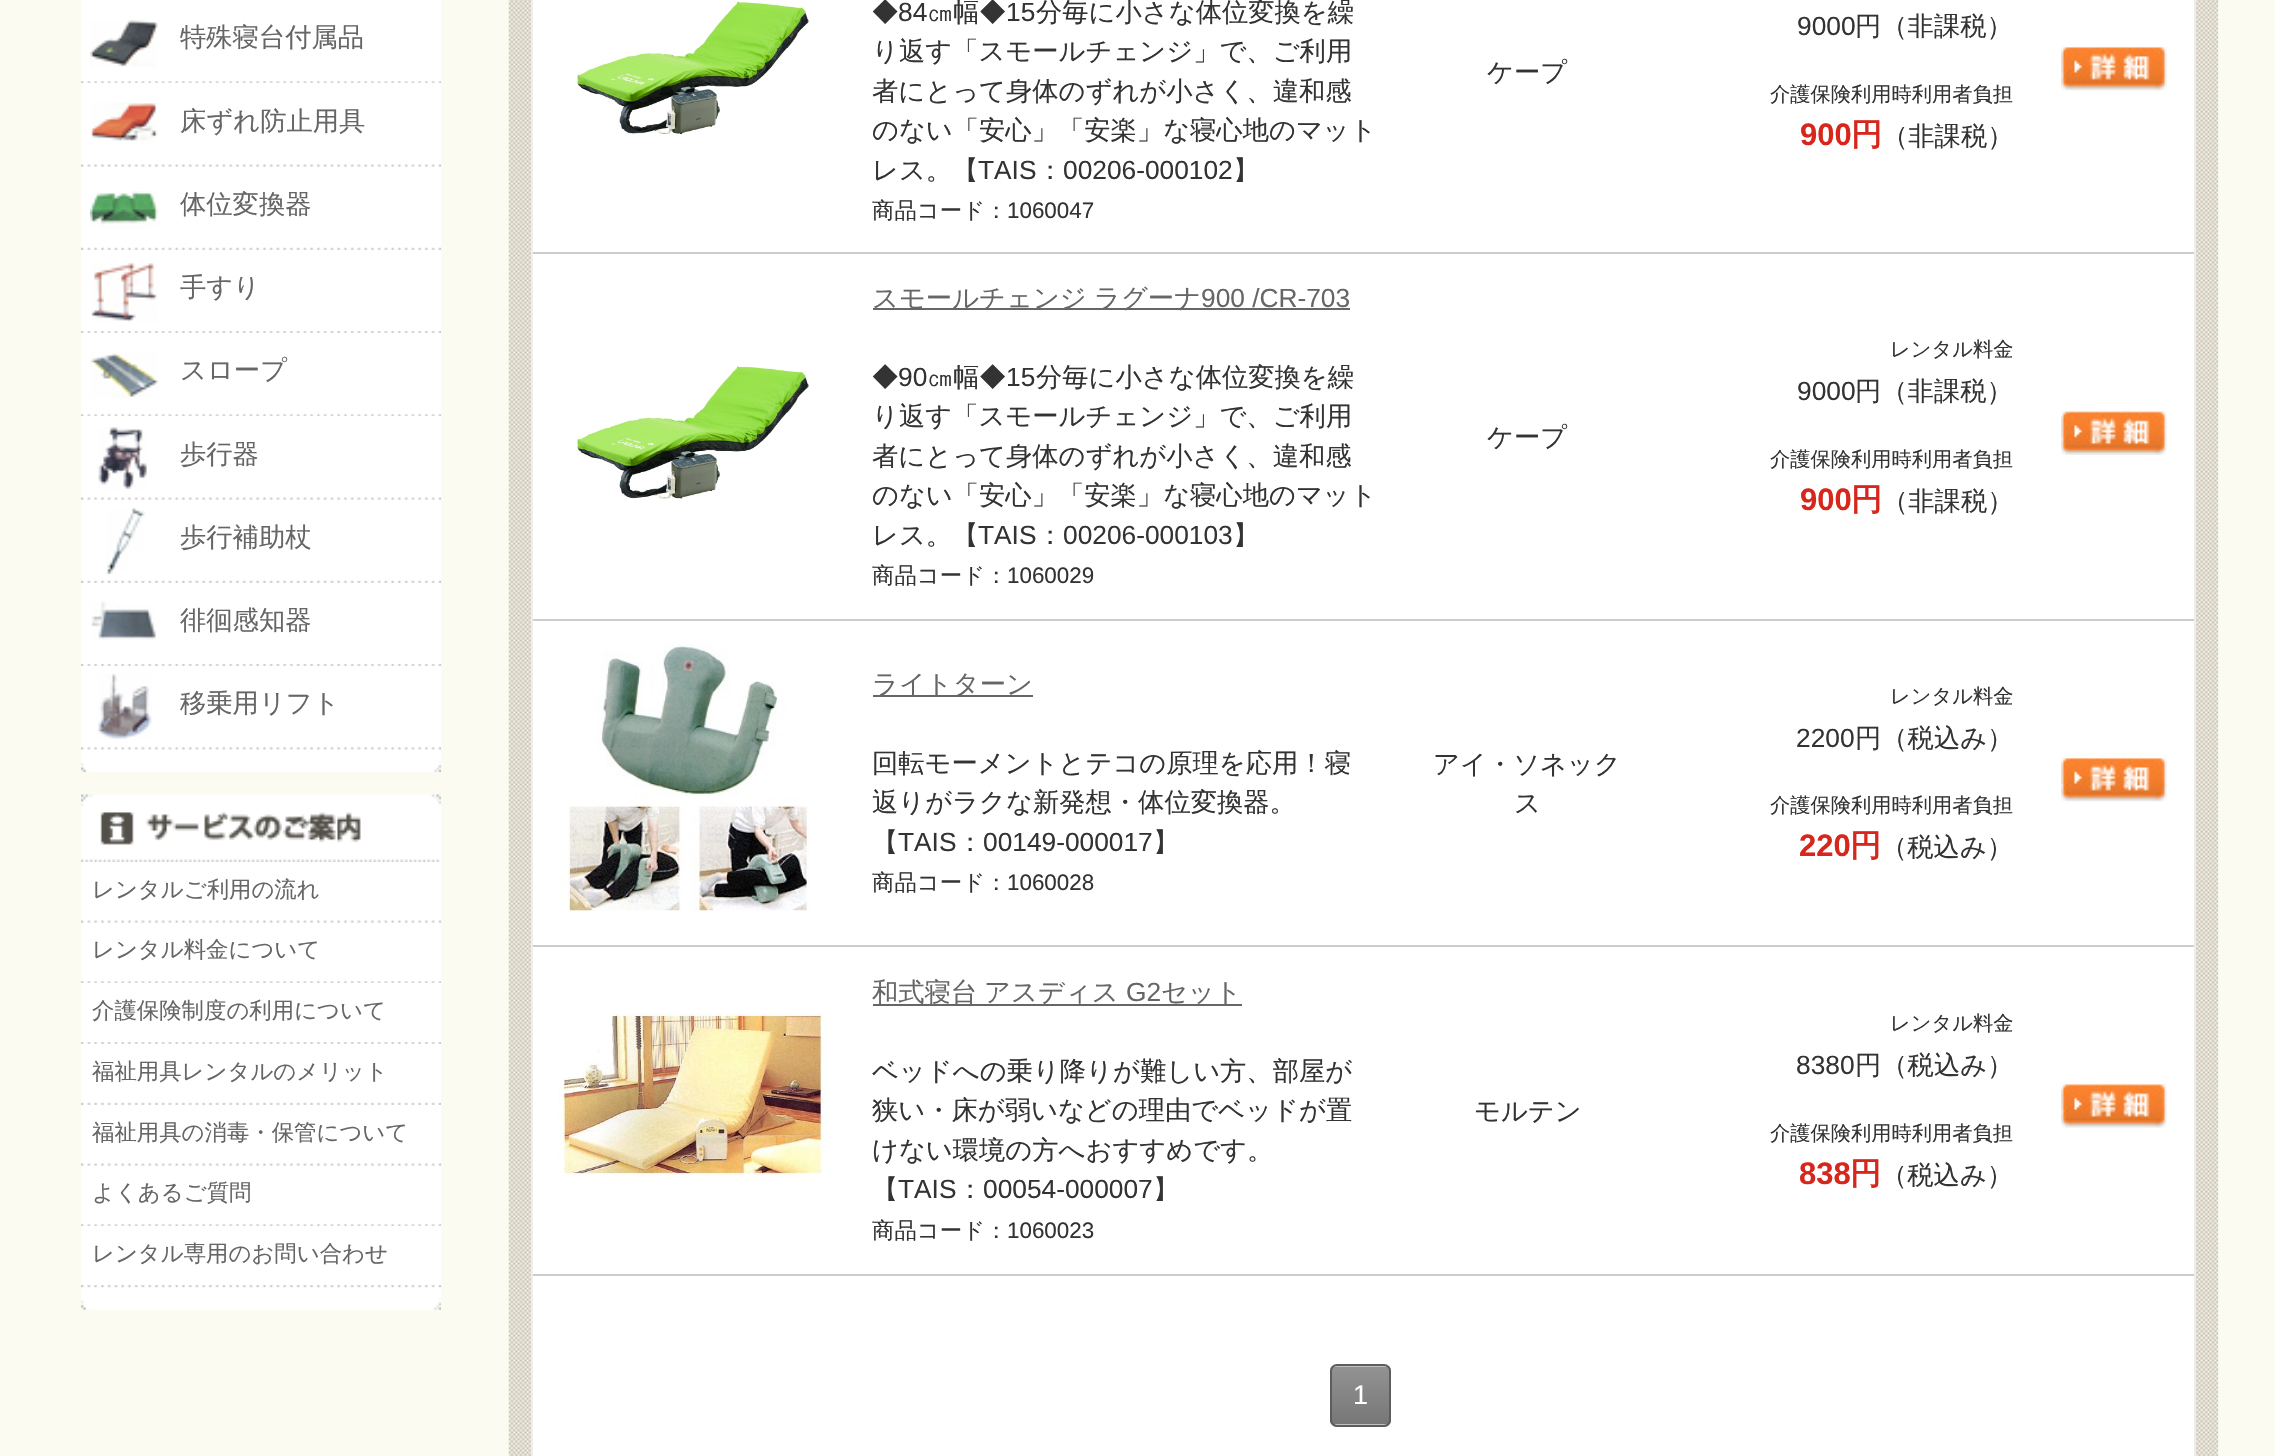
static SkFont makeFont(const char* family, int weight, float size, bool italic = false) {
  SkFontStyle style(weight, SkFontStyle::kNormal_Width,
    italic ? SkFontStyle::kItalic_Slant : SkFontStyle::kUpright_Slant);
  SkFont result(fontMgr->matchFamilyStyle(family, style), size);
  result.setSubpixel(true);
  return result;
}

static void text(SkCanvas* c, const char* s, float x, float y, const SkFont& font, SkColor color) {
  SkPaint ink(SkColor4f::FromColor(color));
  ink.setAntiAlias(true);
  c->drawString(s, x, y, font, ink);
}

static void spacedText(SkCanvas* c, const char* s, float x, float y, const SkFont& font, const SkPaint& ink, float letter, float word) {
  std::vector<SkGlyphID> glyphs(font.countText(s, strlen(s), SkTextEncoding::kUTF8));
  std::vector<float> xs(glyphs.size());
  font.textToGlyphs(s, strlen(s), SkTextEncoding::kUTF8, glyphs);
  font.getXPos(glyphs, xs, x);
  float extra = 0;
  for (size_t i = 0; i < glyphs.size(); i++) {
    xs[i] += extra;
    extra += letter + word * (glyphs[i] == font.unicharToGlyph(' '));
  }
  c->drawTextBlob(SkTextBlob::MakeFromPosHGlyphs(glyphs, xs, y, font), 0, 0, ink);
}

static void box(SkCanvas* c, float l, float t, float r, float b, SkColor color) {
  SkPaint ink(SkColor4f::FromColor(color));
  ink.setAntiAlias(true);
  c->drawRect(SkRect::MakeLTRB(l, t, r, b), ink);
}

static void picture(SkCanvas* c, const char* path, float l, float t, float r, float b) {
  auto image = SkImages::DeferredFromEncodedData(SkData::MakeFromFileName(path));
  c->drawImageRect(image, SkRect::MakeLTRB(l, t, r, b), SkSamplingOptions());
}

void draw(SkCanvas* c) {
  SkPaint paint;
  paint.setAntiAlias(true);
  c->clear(0xfffbfbf1);
  picture(c, "img_01.png", 81, 749, 441, 772);
  box(c, 81, 0, 441, 749, 0xffffffff);
  picture(c, "img_02.png", 81, 81, 441, 83);
  picture(c, "img_03.png", 90, 20, 158, 67);
  SkFont face1 = makeFont("WenQuanYi Zen Hei", 500, 26.3f);
  text(c, "特殊寝台付属品", 180, 46, face1, 0xff666666);
  picture(c, "img_04.png", 81, 164, 441, 167);
  picture(c, "img_05.png", 91, 102, 158, 141);
  text(c, "床ずれ防止用具", 180, 130, face1, 0xff666666);
  picture(c, "img_06.png", 81, 247, 441, 250);
  picture(c, "img_07.png", 90, 191, 158, 229);
  text(c, "体位変換器", 180, 213, face1, 0xff666666);
  picture(c, "img_08.png", 81, 331, 441, 333);
  picture(c, "img_09.png", 91, 263, 158, 323);
  text(c, "手すり", 180, 296, face1, 0xff666666);
  picture(c, "img_02.png", 81, 414, 441, 416);
  picture(c, "img_10.png", 90, 352, 158, 398);
  text(c, "スロープ", 180, 379, face1, 0xff666666);
  picture(c, "img_04.png", 81, 497, 441, 500);
  picture(c, "img_11.png", 98, 427, 147, 490);
  text(c, "歩行器", 180, 463, face1, 0xff666666);
  picture(c, "img_06.png", 81, 580, 441, 583);
  picture(c, "img_12.png", 106, 508, 145, 574);
  text(c, "歩行補助杖", 180, 546, face1, 0xff666666);
  picture(c, "img_08.png", 81, 664, 441, 666);
  picture(c, "img_13.png", 90, 601, 156, 640);
  text(c, "徘徊感知器", 180, 629, face1, 0xff666666);
  picture(c, "img_14.png", 81, 747, 441, 750);
  picture(c, "img_15.png", 98, 673, 152, 739);
  text(c, "移乗用リフト", 180, 712, face1, 0xff666666);
  picture(c, "img_16.png", 81, 794, 441, 862);
  picture(c, "img_17.png", 81, 1287, 441, 1310);
  box(c, 81, 862, 441, 1287, 0xffffffff);
  picture(c, "img_04.png", 81, 920, 441, 923);
  SkFont face2 = makeFont("WenQuanYi Zen Hei", 500, 22.4f);
  text(c, "レンタルご利用の流れ", 92, 897, face2, 0xff666666);
  picture(c, "img_02.png", 81, 981, 441, 983);
  text(c, "レンタル料金について", 92, 957, face2, 0xff666666);
  picture(c, "img_08.png", 81, 1042, 441, 1044);
  text(c, "介護保険制度の利用について", 92, 1018, face2, 0xff666666);
  picture(c, "img_06.png", 81, 1102, 441, 1105);
  text(c, "福祉用具レンタルのメリット", 92, 1079, face2, 0xff666666);
  picture(c, "img_04.png", 81, 1163, 441, 1166);
  text(c, "福祉用具の消毒・保管について", 92, 1140, face2, 0xff666666);
  picture(c, "img_02.png", 81, 1224, 441, 1226);
  text(c, "よくあるご質問", 92, 1200, face2, 0xff666666);
  picture(c, "img_18.png", 81, 1285, 441, 1288);
  text(c, "レンタル専用のお問い合わせ", 92, 1261, face2, 0xff666666);
  picture(c, "img_19.png", 508, 0, 2219, 1456);
  paint.setColor(0xffffffff);
  c->drawRect(SkRect::MakeLTRB(532, -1, 2195, 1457), paint);
  paint.setStyle(SkPaint::kStroke_Style);
  paint.setStrokeWidth(2);
  paint.setColor(0xffeeeeee);
  c->drawRect(SkRect::MakeLTRB(532, -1, 2195, 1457), paint);
  picture(c, "img_20.png", 577, 1, 809, 135);
  text(c, "◆", 872, 21, face1, 0xff333333);
  SkFont face3 = makeFont("Liberation Sans", 400, 26.3f);
  text(c, "84", 898, 21, face3, 0xff333333);
  text(c, "㎝幅◆", 927, 21, face1, 0xff333333);
  text(c, "15", 1006, 21, face3, 0xff333333);
  text(c, "分毎に小さな体位変換を繰", 1036, 21, face1, 0xff333333);
  text(c, "り返す「スモールチェンジ」で、ご利用", 872, 60, face1, 0xff333333);
  text(c, "者にとって身体のずれが小さく、違和感", 872, 100, face1, 0xff333333);
  text(c, "のない「安心」「安楽」な寝心地のマット", 872, 139, face1, 0xff333333);
  text(c, "レス。【", 872, 179, face1, 0xff333333);
  text(c, "TAIS", 978, 179, face3, 0xff333333);
  text(c, "：", 1037, 179, face1, 0xff333333);
  text(c, "00206-000102", 1063, 179, face3, 0xff333333);
  text(c, "】", 1233, 179, face1, 0xff333333);
  text(c, "商品コード：", 872, 218, face2, 0xff333333);
  SkFont face4 = makeFont("Liberation Sans", 400, 22.4f);
  text(c, "1060047", 1007, 218, face4, 0xff333333);
  text(c, "9000", 1797, 35, face3, 0xff333333);
  text(c, "円（非課税）", 1855, 35, face1, 0xff333333);
  SkFont face5 = makeFont("WenQuanYi Zen Hei", 500, 20.25f);
  text(c, "介護保険利用時利用者負担", 1770, 101, face5, 0xff333333);
  SkFont face6 = makeFont("Liberation Sans", 700, 31);
  text(c, "900", 1800, 145, face6, 0xffd7261c);
  SkFont face7 = makeFont("WenQuanYi Zen Hei", 700, 31);
  text(c, "円", 1851, 145, face7, 0xffd7261c);
  text(c, "（非課税）", 1882, 145, face1, 0xff333333);
  box(c, 533, 252, 2194, 254, 0xffcccccc);
  picture(c, "img_21.png", 2061, 45, 2167, 91);
  text(c, "ケープ", 1487, 81, face1, 0xff333333);
  picture(c, "img_22.png", 577, 366, 809, 499);
  box(c, 873, 308, 1350, 310, 0xff666666);
  text(c, "スモールチェンジ", 872, 307, face1, 0xff666666);
  text(c, "ラグーナ", 1094, 307, face1, 0xff666666);
  text(c, "900 /CR-703", 1201, 307, face3, 0xff666666);
  text(c, "◆", 872, 386, face1, 0xff333333);
  text(c, "90", 898, 386, face3, 0xff333333);
  text(c, "㎝幅◆", 927, 386, face1, 0xff333333);
  text(c, "15", 1006, 386, face3, 0xff333333);
  text(c, "分毎に小さな体位変換を繰", 1036, 386, face1, 0xff333333);
  text(c, "り返す「スモールチェンジ」で、ご利用", 872, 425, face1, 0xff333333);
  text(c, "者にとって身体のずれが小さく、違和感", 872, 465, face1, 0xff333333);
  text(c, "のない「安心」「安楽」な寝心地のマット", 872, 504, face1, 0xff333333);
  text(c, "レス。【", 872, 544, face1, 0xff333333);
  text(c, "TAIS", 978, 544, face3, 0xff333333);
  text(c, "：", 1037, 544, face1, 0xff333333);
  text(c, "00206-000103", 1063, 544, face3, 0xff333333);
  text(c, "】", 1233, 544, face1, 0xff333333);
  text(c, "商品コード：", 872, 583, face2, 0xff333333);
  text(c, "1060029", 1007, 583, face4, 0xff333333);
  text(c, "レンタル料金", 1890, 356, face5, 0xff333333);
  text(c, "9000", 1797, 400, face3, 0xff333333);
  text(c, "円（非課税）", 1855, 400, face1, 0xff333333);
  text(c, "介護保険利用時利用者負担", 1770, 466, face5, 0xff333333);
  text(c, "900", 1800, 510, face6, 0xffd7261c);
  text(c, "円", 1851, 510, face7, 0xffd7261c);
  text(c, "（非課税）", 1882, 510, face1, 0xff333333);
  box(c, 533, 619, 2194, 621, 0xffcccccc);
  picture(c, "img_23.png", 2061, 410, 2167, 455);
  text(c, "ケープ", 1487, 446, face1, 0xff333333);
  picture(c, "img_24.png", 558, 644, 810, 912);
  box(c, 873, 695, 1033, 697, 0xff666666);
  text(c, "ライトターン", 872, 693, face1, 0xff666666);
  text(c, "回転モーメントとテコの原理を応用！寝", 872, 772, face1, 0xff333333);
  text(c, "返りがラクな新発想・体位変換器。", 872, 811, face1, 0xff333333);
  text(c, "【", 872, 851, face1, 0xff333333);
  text(c, "TAIS", 898, 851, face3, 0xff333333);
  text(c, "：", 957, 851, face1, 0xff333333);
  text(c, "00149-000017", 983, 851, face3, 0xff333333);
  text(c, "】", 1153, 851, face1, 0xff333333);
  text(c, "商品コード：", 872, 890, face2, 0xff333333);
  text(c, "1060028", 1007, 890, face4, 0xff333333);
  text(c, "アイ・ソネック", 1433, 773, face1, 0xff333333);
  text(c, "ス", 1514, 812, face1, 0xff333333);
  text(c, "レンタル料金", 1890, 703, face5, 0xff333333);
  text(c, "2200", 1796, 747, face3, 0xff333333);
  text(c, "円（税込み）", 1855, 747, face1, 0xff333333);
  text(c, "介護保険利用時利用者負担", 1770, 812, face5, 0xff333333);
  text(c, "220", 1799, 856, face6, 0xffd7261c);
  text(c, "円", 1850, 856, face7, 0xffd7261c);
  text(c, "（税込み）", 1881, 856, face1, 0xff333333);
  box(c, 533, 945, 2194, 947, 0xffcccccc);
  picture(c, "img_21.png", 2061, 756, 2167, 802);
  picture(c, "img_25.png", 558, 1013, 828, 1176);
  box(c, 873, 1004, 1242, 1006, 0xff666666);
  paint.setStyle(SkPaint::kFill_Style);
  paint.setColor(0xff666666);
  spacedText(c, "和式寝台 アスディス", 872, 1001, face1, paint, 0, -1);
  text(c, "G2", 1126, 1001, face3, 0xff666666);
  text(c, "セット", 1161, 1001, face1, 0xff666666);
  text(c, "ベッドへの乗り降りが難しい方、部屋が", 872, 1080, face1, 0xff333333);
  text(c, "狭い・床が弱いなどの理由でベッドが置", 872, 1119, face1, 0xff333333);
  text(c, "けない環境の方へおすすめです。", 872, 1159, face1, 0xff333333);
  text(c, "【", 872, 1198, face1, 0xff333333);
  text(c, "TAIS", 898, 1198, face3, 0xff333333);
  text(c, "：", 957, 1198, face1, 0xff333333);
  text(c, "00054-000007", 983, 1198, face3, 0xff333333);
  text(c, "】", 1153, 1198, face1, 0xff333333);
  text(c, "商品コード：", 872, 1238, face2, 0xff333333);
  text(c, "1060023", 1007, 1238, face4, 0xff333333);
  text(c, "レンタル料金", 1890, 1030, face5, 0xff333333);
  text(c, "8380", 1796, 1074, face3, 0xff333333);
  text(c, "円（税込み）", 1855, 1074, face1, 0xff333333);
  text(c, "介護保険利用時利用者負担", 1770, 1140, face5, 0xff333333);
  text(c, "838", 1799, 1184, face6, 0xffd7261c);
  text(c, "円", 1850, 1184, face7, 0xffd7261c);
  text(c, "（税込み）", 1881, 1184, face1, 0xff333333);
  box(c, 533, 1274, 2194, 1276, 0xffcccccc);
  picture(c, "img_26.png", 2061, 1082, 2167, 1128);
  text(c, "モルテン", 1474, 1120, face1, 0xff333333);
  c->save();
  c->clipPath(SkPathBuilder().moveTo(1337, 1364).lineTo(1384, 1364).cubicTo(1388, 1364, 1391, 1367, 1391, 1371).lineTo(1391, 1420).cubicTo(1391, 1424, 1388, 1427, 1384, 1427).lineTo(1337, 1427).cubicTo(1333, 1427, 1330, 1424, 1330, 1420).lineTo(1330, 1371).cubicTo(1330, 1367, 1333, 1364, 1337, 1364).close().detach(), true);
  {
    const SkColor colors[] = {0xffc0c0c0, 0xff929292, 0xff777777};
    const float stops[] = {0.02f, 0.02f, 1};
    const SkPoint ends[] = {{1332, 1366}, {1332, 1424}};
    paint.setShader(SkGradientShader::MakeLinear(ends, colors, stops, 3, SkTileMode::kClamp));
    paint.setAlpha(255);
  }
  c->drawRect(SkRect::MakeLTRB(1330, 1366, 1391, 1424), paint);
  {
    const SkColor colors[] = {0xffc0c0c0, 0xff929292, 0xff777777};
    const float stops[] = {0.02f, 0.02f, 1};
    const SkPoint ends[] = {{1332, 1424}, {1332, 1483}};
    paint.setShader(SkGradientShader::MakeLinear(ends, colors, stops, 3, SkTileMode::kClamp));
    paint.setAlpha(255);
  }
  c->drawRect(SkRect::MakeLTRB(1330, 1424, 1391, 1427), paint);
  c->restore();
  paint.setStyle(SkPaint::kStroke_Style);
  paint.setShader(nullptr);
  paint.setColor(0xff5d5d5d);
  c->drawRoundRect(SkRect::MakeLTRB(1331, 1365, 1390, 1426), 6, 6, paint);
  SkFont face8 = makeFont("Liberation Sans", 400, 27);
  text(c, "1", 1353, 1404, face8, 0xffffffff);
}
